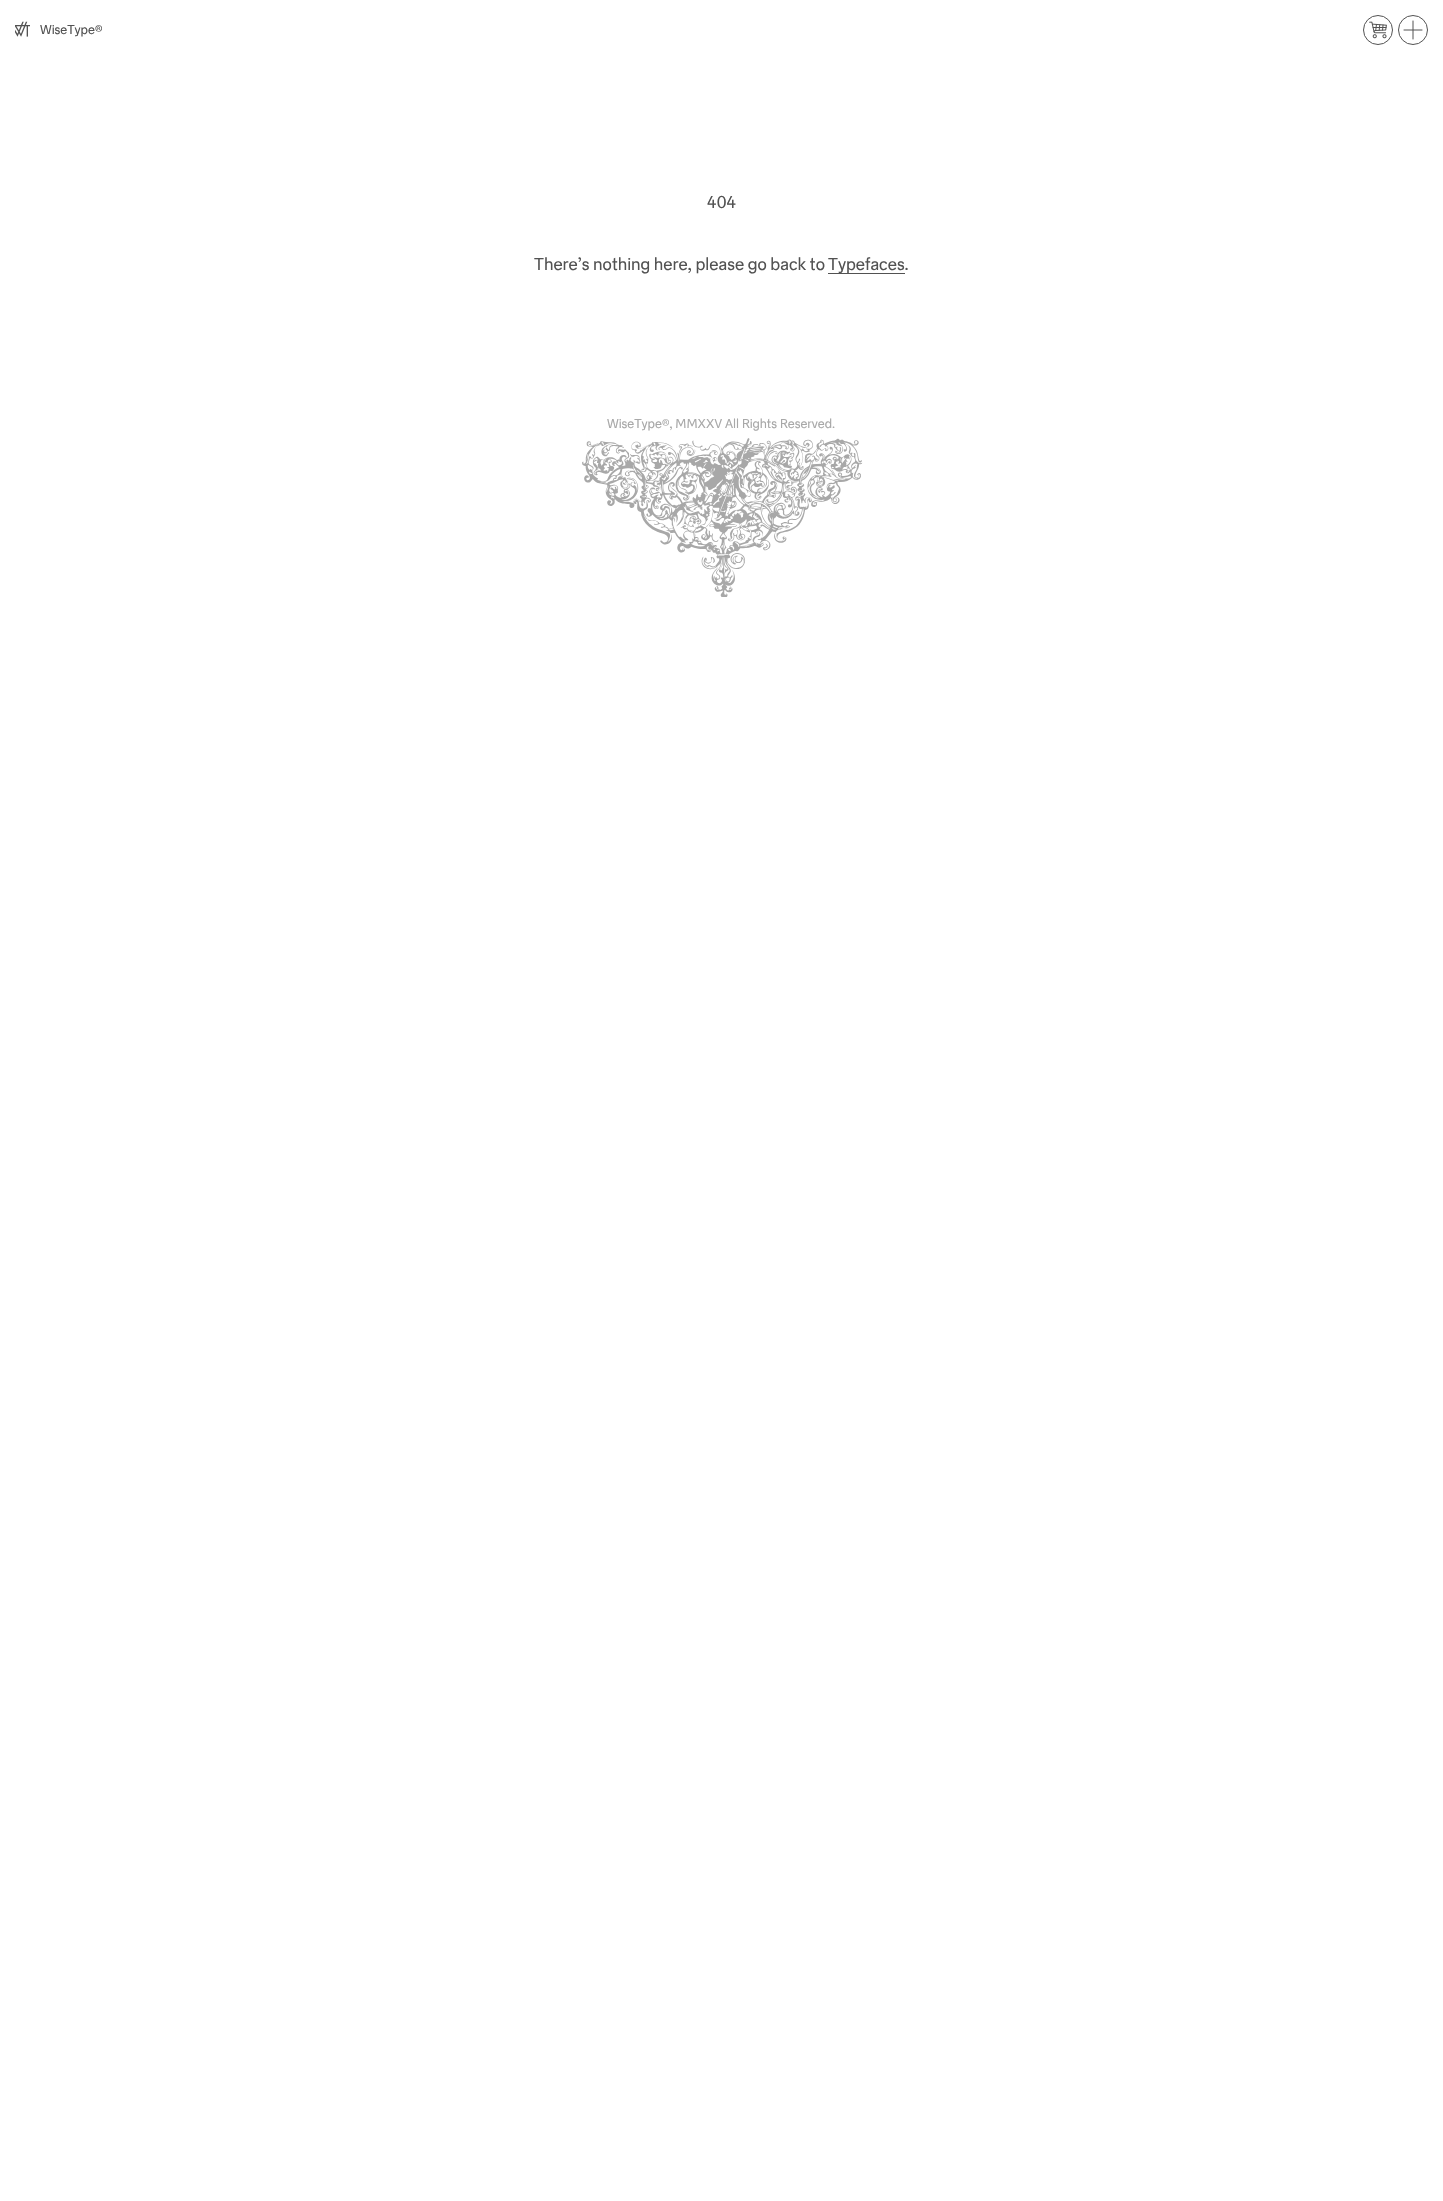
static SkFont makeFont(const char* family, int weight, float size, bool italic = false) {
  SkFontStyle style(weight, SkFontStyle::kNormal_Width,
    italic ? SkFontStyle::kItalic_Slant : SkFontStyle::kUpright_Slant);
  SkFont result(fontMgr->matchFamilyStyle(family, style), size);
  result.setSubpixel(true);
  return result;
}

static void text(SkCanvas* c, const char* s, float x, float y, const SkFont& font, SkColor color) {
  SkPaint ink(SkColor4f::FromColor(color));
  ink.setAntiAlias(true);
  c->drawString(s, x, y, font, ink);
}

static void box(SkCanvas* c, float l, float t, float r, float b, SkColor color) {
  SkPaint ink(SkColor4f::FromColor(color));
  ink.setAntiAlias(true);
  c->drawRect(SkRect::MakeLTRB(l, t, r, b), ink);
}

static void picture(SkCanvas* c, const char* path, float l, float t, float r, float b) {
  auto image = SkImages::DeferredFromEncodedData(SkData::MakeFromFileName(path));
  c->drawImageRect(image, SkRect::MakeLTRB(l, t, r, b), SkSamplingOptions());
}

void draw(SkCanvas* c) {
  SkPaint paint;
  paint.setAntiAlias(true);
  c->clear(0xffffffff);
  picture(c, "img_01.png", 15, 21, 30, 37);
  SkFont face1 = makeFont("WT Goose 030", 400, 12);
  text(c, "WiseType®", 40, 34, face1, 0xff525252);
  paint.setStyle(SkPaint::kStroke_Style);
  paint.setStrokeWidth(1);
  paint.setColor(0xff525252);
  c->drawCircle(1378, 30, 14.5f, paint);
  picture(c, "img_02.png", 1369, 21, 1387, 39);
  c->drawCircle(1413, 30, 14.5f, paint);
  paint.setStrokeCap(SkPaint::kRound_Cap);
  paint.setStrokeJoin(SkPaint::kRound_Join);
  c->drawPath(SkPathBuilder().moveTo(1413, 21).lineTo(1413, 39).moveTo(1422, 30).lineTo(1404, 30).detach(), paint);
  SkFont face2 = makeFont("WT Goose 030", 400, 16);
  text(c, "404", 707, 208, face2, 0xff525252);
  text(c, "There’s nothing here, please go back to", 534, 270, face2, 0xff525252);
  box(c, 828, 273, 905, 274, 0xff525252);
  text(c, "Typefaces.", 828, 270, face2, 0xff525252);
  text(c, "WiseType®, MMXXV All Rights Reserved.", 607, 428, face1, 0xffa8a8a8);
  picture(c, "img_03.png", 582, 438, 863, 597);
}
